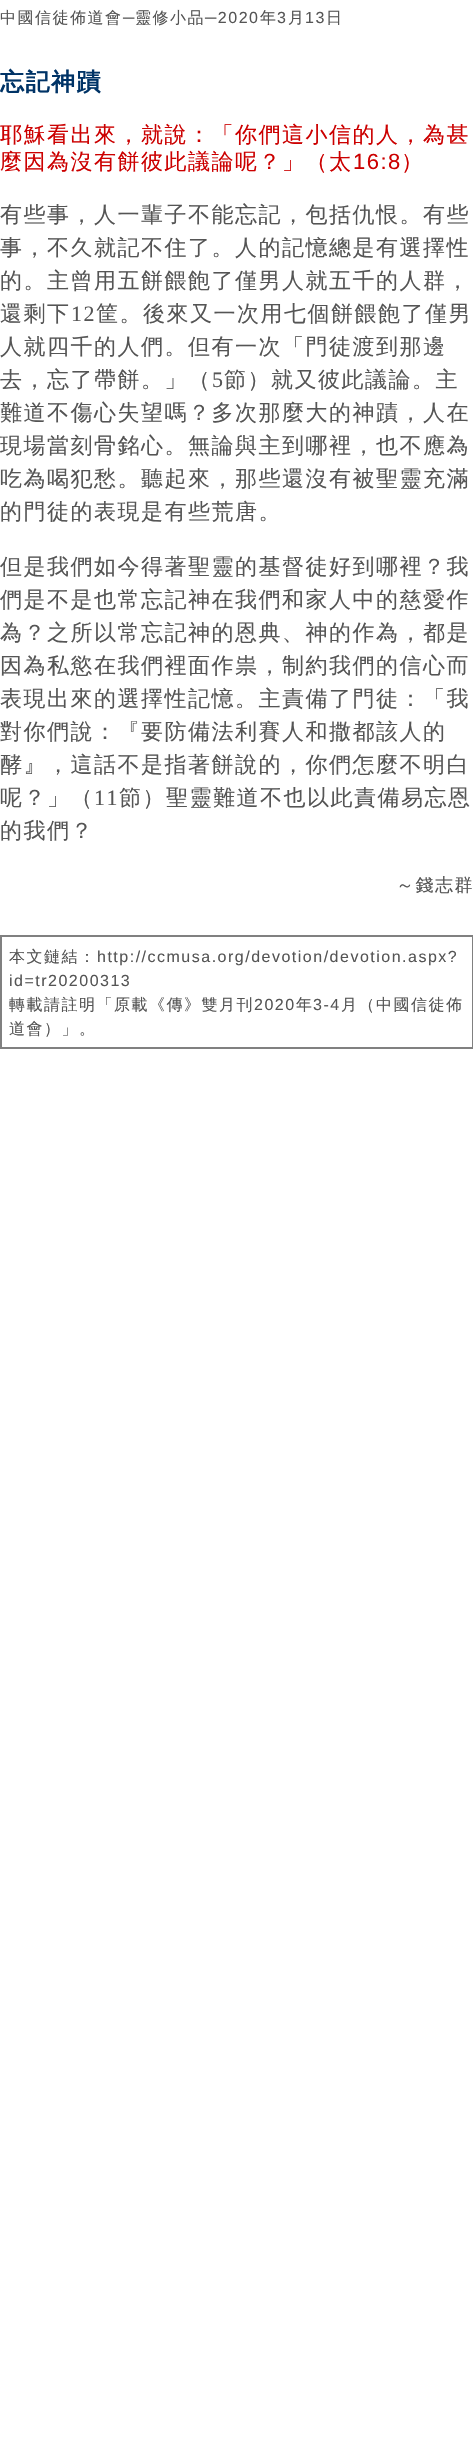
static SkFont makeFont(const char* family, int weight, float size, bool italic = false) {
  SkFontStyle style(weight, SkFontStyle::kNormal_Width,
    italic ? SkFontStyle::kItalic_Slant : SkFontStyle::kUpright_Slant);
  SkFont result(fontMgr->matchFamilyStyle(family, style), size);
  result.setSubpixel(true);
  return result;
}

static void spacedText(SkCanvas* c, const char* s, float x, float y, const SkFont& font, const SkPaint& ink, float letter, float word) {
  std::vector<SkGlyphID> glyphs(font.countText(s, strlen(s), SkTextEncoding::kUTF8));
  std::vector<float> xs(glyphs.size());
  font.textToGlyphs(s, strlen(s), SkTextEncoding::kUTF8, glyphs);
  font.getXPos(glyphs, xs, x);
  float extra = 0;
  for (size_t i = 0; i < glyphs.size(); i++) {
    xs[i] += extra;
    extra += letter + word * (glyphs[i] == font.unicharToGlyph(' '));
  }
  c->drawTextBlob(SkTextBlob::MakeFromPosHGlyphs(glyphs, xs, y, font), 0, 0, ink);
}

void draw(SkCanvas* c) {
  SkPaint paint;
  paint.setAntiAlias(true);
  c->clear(0xffffffff);
  SkFont face1 = makeFont("WenQuanYi Zen Hei", 500, 16);
  paint.setColor(0xff555555);
  spacedText(c, "中國信徒佈道會", 0, 23, face1, paint, 1.5f, 0);
  SkFont face2 = makeFont("Liberation Sans", 400, 16);
  spacedText(c, "─", 123, 23, face2, paint, 1.5f, 0);
  spacedText(c, "靈修小品", 135, 23, face1, paint, 1.5f, 0);
  spacedText(c, "─2020", 205, 23, face2, paint, 1.5f, 0);
  spacedText(c, "年", 260, 23, face1, paint, 1.5f, 0);
  spacedText(c, "3", 277, 23, face2, paint, 1.5f, 0);
  spacedText(c, "月", 288, 23, face1, paint, 1.5f, 0);
  spacedText(c, "13", 305, 23, face2, paint, 1.5f, 0);
  spacedText(c, "日", 326, 23, face1, paint, 1.5f, 0);
  SkFont face3 = makeFont("WenQuanYi Zen Hei", 700, 24);
  paint.setColor(0xff003366);
  spacedText(c, "忘記神蹟", 0, 90, face3, paint, 1.5f, 0);
  SkFont face4 = makeFont("WenQuanYi Zen Hei", 500, 22);
  paint.setColor(0xffcc0000);
  spacedText(c, "耶穌看出來，就說：「你們這小信的人，為甚", 0, 142, face4, paint, 1.5f, 0);
  spacedText(c, "麼因為沒有餅彼此議論呢？」（太", 0, 169, face4, paint, 1.5f, 0);
  SkFont face5 = makeFont("Liberation Sans", 400, 22);
  spacedText(c, "16:8", 353, 169, face5, paint, 1.5f, 0);
  spacedText(c, "）", 401, 169, face4, paint, 1.5f, 0);
  paint.setColor(0xff555555);
  spacedText(c, "有些事，人一輩子不能忘記，包括仇恨。有些", 0, 222, face4, paint, 1.5f, 0);
  spacedText(c, "事，不久就記不住了。人的記憶總是有選擇性", 0, 255, face4, paint, 1.5f, 0);
  spacedText(c, "的。主曾用五餅餵飽了僅男人就五千的人群，", 0, 288, face4, paint, 1.5f, 0);
  spacedText(c, "還剩下", 0, 321, face4, paint, 1.5f, 0);
  SkFont face6 = makeFont("Liberation Serif", 400, 22);
  spacedText(c, "12", 71, 321, face6, paint, 1.5f, 0);
  spacedText(c, "筐。後來又一次用七個餅餵飽了僅男", 96, 321, face4, paint, 1.5f, 0);
  spacedText(c, "人就四千的人們。但有一次「門徒渡到那邊", 0, 354, face4, paint, 1.5f, 0);
  spacedText(c, "去，忘了帶餅。」（", 0, 387, face4, paint, 1.5f, 0);
  spacedText(c, "5", 212, 387, face6, paint, 1.5f, 0);
  spacedText(c, "節）就又彼此議論。主", 224, 387, face4, paint, 1.5f, 0);
  spacedText(c, "難道不傷心失望嗎？多次那麼大的神蹟，人在", 0, 420, face4, paint, 1.5f, 0);
  spacedText(c, "現場當刻骨銘心。無論與主到哪裡，也不應為", 0, 453, face4, paint, 1.5f, 0);
  spacedText(c, "吃為喝犯愁。聽起來，那些還沒有被聖靈充滿", 0, 486, face4, paint, 1.5f, 0);
  spacedText(c, "的門徒的表現是有些荒唐。", 0, 519, face4, paint, 1.5f, 0);
  spacedText(c, "但是我們如今得著聖靈的基督徒好到哪裡？我", 0, 574, face4, paint, 1.5f, 0);
  spacedText(c, "們是不是也常忘記神在我們和家人中的慈愛作", 0, 607, face4, paint, 1.5f, 0);
  spacedText(c, "為？之所以常忘記神的恩典、神的作為，都是", 0, 640, face4, paint, 1.5f, 0);
  spacedText(c, "因為私慾在我們裡面作祟，制約我們的信心而", 0, 673, face4, paint, 1.5f, 0);
  spacedText(c, "表現出來的選擇性記憶。主責備了門徒：「我", 0, 706, face4, paint, 1.5f, 0);
  spacedText(c, "對你們說：『要防備法利賽人和撒都該人的", 0, 739, face4, paint, 1.5f, 0);
  spacedText(c, "酵』，這話不是指著餅說的，你們怎麼不明白", 0, 772, face4, paint, 1.5f, 0);
  spacedText(c, "呢？」（", 0, 805, face4, paint, 1.5f, 0);
  spacedText(c, "11", 94, 805, face6, paint, 1.5f, 0);
  spacedText(c, "節）聖靈難道不也以此責備易忘恩", 119, 805, face4, paint, 1.5f, 0);
  spacedText(c, "的我們？", 0, 838, face4, paint, 1.5f, 0);
  SkFont face7 = makeFont("WenQuanYi Zen Hei", 500, 18);
  spacedText(c, "～錢志群", 396, 891, face7, paint, 1.5f, 0);
  paint.setStyle(SkPaint::kStroke_Style);
  paint.setStrokeWidth(2);
  paint.setColor(0xff808080);
  c->drawRect(SkRect::MakeLTRB(1, 936, 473, 1048), paint);
  paint.setStyle(SkPaint::kFill_Style);
  paint.setColor(0xff555555);
  spacedText(c, "本文鏈結：", 9, 962, face1, paint, 1.5f, 0);
  spacedText(c, "http://ccmusa.org/devotion/devotion.aspx?", 97, 962, face2, paint, 1.5f, 0);
  spacedText(c, "id=tr20200313", 9, 986, face2, paint, 1.5f, 0);
  spacedText(c, "轉載請註明「原載《傳》雙月刊", 9, 1010, face1, paint, 1.5f, 0);
  spacedText(c, "2020", 254, 1010, face2, paint, 1.5f, 0);
  spacedText(c, "年", 296, 1010, face1, paint, 1.5f, 0);
  spacedText(c, "3-4", 313, 1010, face2, paint, 1.5f, 0);
  spacedText(c, "月（中國信徒佈", 341, 1010, face1, paint, 1.5f, 0);
  spacedText(c, "道會）」。", 9, 1034, face1, paint, 1.5f, 0);
}
